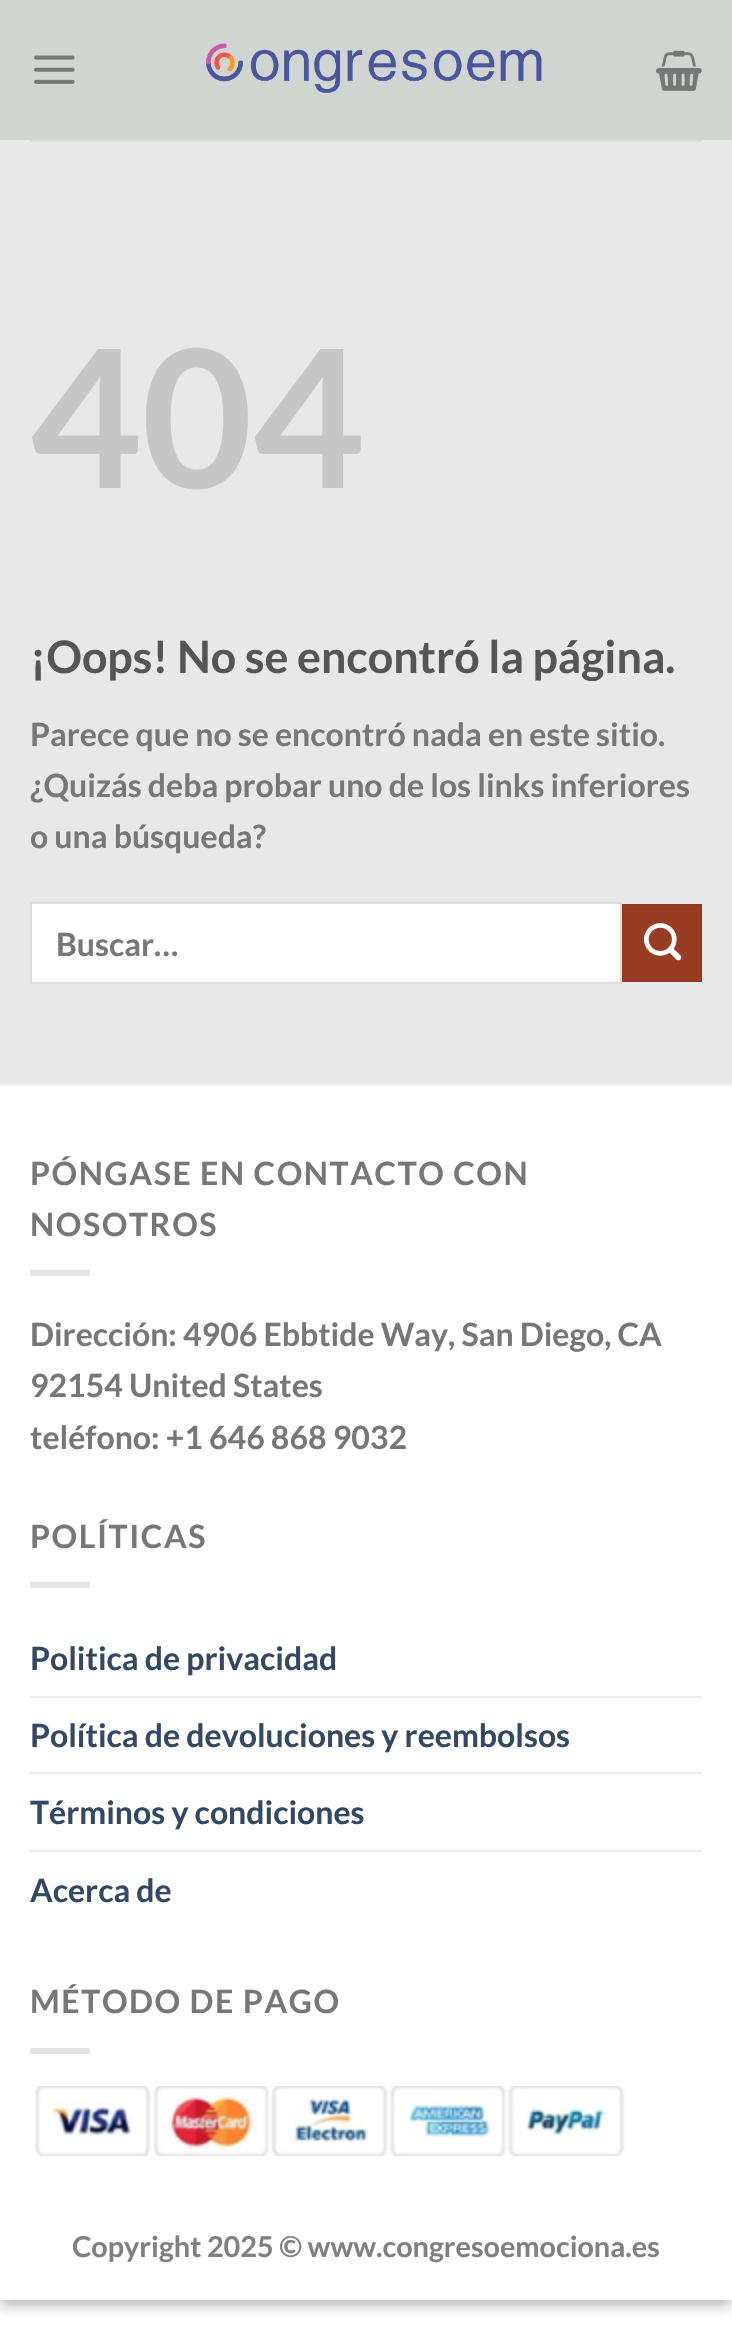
static SkFont makeFont(const char* family, int weight, float size, bool italic = false) {
  SkFontStyle style(weight, SkFontStyle::kNormal_Width,
    italic ? SkFontStyle::kItalic_Slant : SkFontStyle::kUpright_Slant);
  SkFont result(fontMgr->matchFamilyStyle(family, style), size);
  result.setSubpixel(true);
  return result;
}

static void text(SkCanvas* c, const char* s, float x, float y, const SkFont& font, SkColor color) {
  SkPaint ink(SkColor4f::FromColor(color));
  ink.setAntiAlias(true);
  c->drawString(s, x, y, font, ink);
}

static void spacedText(SkCanvas* c, const char* s, float x, float y, const SkFont& font, const SkPaint& ink, float letter, float word) {
  std::vector<SkGlyphID> glyphs(font.countText(s, strlen(s), SkTextEncoding::kUTF8));
  std::vector<float> xs(glyphs.size());
  font.textToGlyphs(s, strlen(s), SkTextEncoding::kUTF8, glyphs);
  font.getXPos(glyphs, xs, x);
  float extra = 0;
  for (size_t i = 0; i < glyphs.size(); i++) {
    xs[i] += extra;
    extra += letter + word * (glyphs[i] == font.unicharToGlyph(' '));
  }
  c->drawTextBlob(SkTextBlob::MakeFromPosHGlyphs(glyphs, xs, y, font), 0, 0, ink);
}

static void box(SkCanvas* c, float l, float t, float r, float b, SkColor color) {
  SkPaint ink(SkColor4f::FromColor(color));
  ink.setAntiAlias(true);
  c->drawRect(SkRect::MakeLTRB(l, t, r, b), ink);
}

static void picture(SkCanvas* c, const char* path, float l, float t, float r, float b) {
  auto image = SkImages::DeferredFromEncodedData(SkData::MakeFromFileName(path));
  c->drawImageRect(image, SkRect::MakeLTRB(l, t, r, b), SkSamplingOptions());
}

void draw(SkCanvas* c) {
  SkPaint paint;
  paint.setAntiAlias(true);
  c->clear(0xffffffff);
  paint.setColor(0x3b000000);
  paint.setMaskFilter(SkMaskFilter::MakeBlur(kNormal_SkBlurStyle, 6));
  c->drawRect(SkRect::MakeLTRB(0, 6, 732, 2306), paint);
  paint.setMaskFilter(nullptr);
  paint.setColor(0x29000000);
  paint.setMaskFilter(SkMaskFilter::MakeBlur(kNormal_SkBlurStyle, 6));
  c->drawRect(SkRect::MakeLTRB(8, 14, 724, 2298), paint);
  paint.setMaskFilter(nullptr);
  box(c, 0, 0, 732, 140, 0xffd0d5d2);
  picture(c, "img_01.png", 34, 55, 75, 84);
  picture(c, "img_02.png", 206, 43, 542, 93);
  picture(c, "img_03.png", 656, 50, 702, 91);
  box(c, 0, 140, 732, 1084, 0xffe8e8e8);
  box(c, 30, 140, 702, 142, 0xffdddddd);
  SkFont face1 = makeFont("Lato", 700, 192);
  text(c, "404", 30, 488, face1, 0xffc6c6c6);
  SkFont face2 = makeFont("Lato", 700, 44.75f);
  text(c, "¡Oops! No se encontró la página.", 30, 673, face2, 0xff555555);
  SkFont face3 = makeFont("Lato", 700, 32);
  text(c, "Parece que no se encontró nada en este sitio.", 30, 746, face3, 0xff777777);
  text(c, "¿Quizás deba probar uno de los links inferiores", 30, 797, face3, 0xff777777);
  text(c, "o una búsqueda?", 30, 848, face3, 0xff777777);
  paint.setColor(0xffffffff);
  c->drawRect(SkRect::MakeLTRB(31, 903, 621, 983), paint);
  paint.setStyle(SkPaint::kStroke_Style);
  paint.setStrokeWidth(2);
  paint.setColor(0xffdddddd);
  c->drawRect(SkRect::MakeLTRB(31, 903, 621, 983), paint);
  text(c, "Buscar…", 56, 956, face3, 0xff777777);
  paint.setStyle(SkPaint::kFill_Style);
  paint.setColor(0xff983d23);
  c->drawRect(SkRect::MakeLTRB(623, 905, 701, 981), paint);
  paint.setStyle(SkPaint::kStroke_Style);
  paint.setColor(0xff903a21);
  c->drawRect(SkRect::MakeLTRB(623, 905, 701, 981), paint);
  picture(c, "img_04.png", 644, 923, 682, 961);
  box(c, 0, 1086, 732, 2300, 0xffffffff);
  box(c, 0, 1084, 732, 1086, 0xfff2f2f2);
  paint.setStyle(SkPaint::kFill_Style);
  paint.setColor(0xff777777);
  spacedText(c, "PÓNGASE EN CONTACTO CON", 30, 1185, face3, paint, 1.6f, 0);
  spacedText(c, "NOSOTROS", 30, 1236, face3, paint, 1.6f, 0);
  box(c, 30, 1270, 90, 1276, 0xffe6e6e6);
  text(c, "Dirección: 4906 Ebbtide Way, San Diego, CA", 30, 1346, face3, 0xff777777);
  text(c, "92154 United States", 30, 1397, face3, 0xff777777);
  text(c, "teléfono: +1 646 868 9032", 30, 1449, face3, 0xff777777);
  spacedText(c, "POLÍTICAS", 30, 1548, face3, paint, 1.6f, 0);
  box(c, 30, 1582, 90, 1588, 0xffe6e6e6);
  text(c, "Politica de privacidad", 30, 1670, face3, 0xff334862);
  box(c, 30, 1696, 702, 1698, 0xffececec);
  text(c, "Política de devoluciones y reembolsos", 30, 1747, face3, 0xff334862);
  box(c, 30, 1772, 702, 1774, 0xffececec);
  text(c, "Términos y condiciones", 30, 1824, face3, 0xff334862);
  box(c, 30, 1850, 702, 1852, 0xffececec);
  text(c, "Acerca de", 30, 1902, face3, 0xff334862);
  spacedText(c, "MÉTODO DE PAGO", 30, 2013, face3, paint, 1.6f, 0);
  box(c, 30, 2048, 90, 2054, 0xffe6e6e6);
  picture(c, "img_05.png", 34, 2086, 625, 2156);
  SkFont face4 = makeFont("Lato", 700, 28.8f);
  text(c, "Copyright 2025 © www.congresoemociona.es", 72, 2257, face4, 0xff808080);
}
